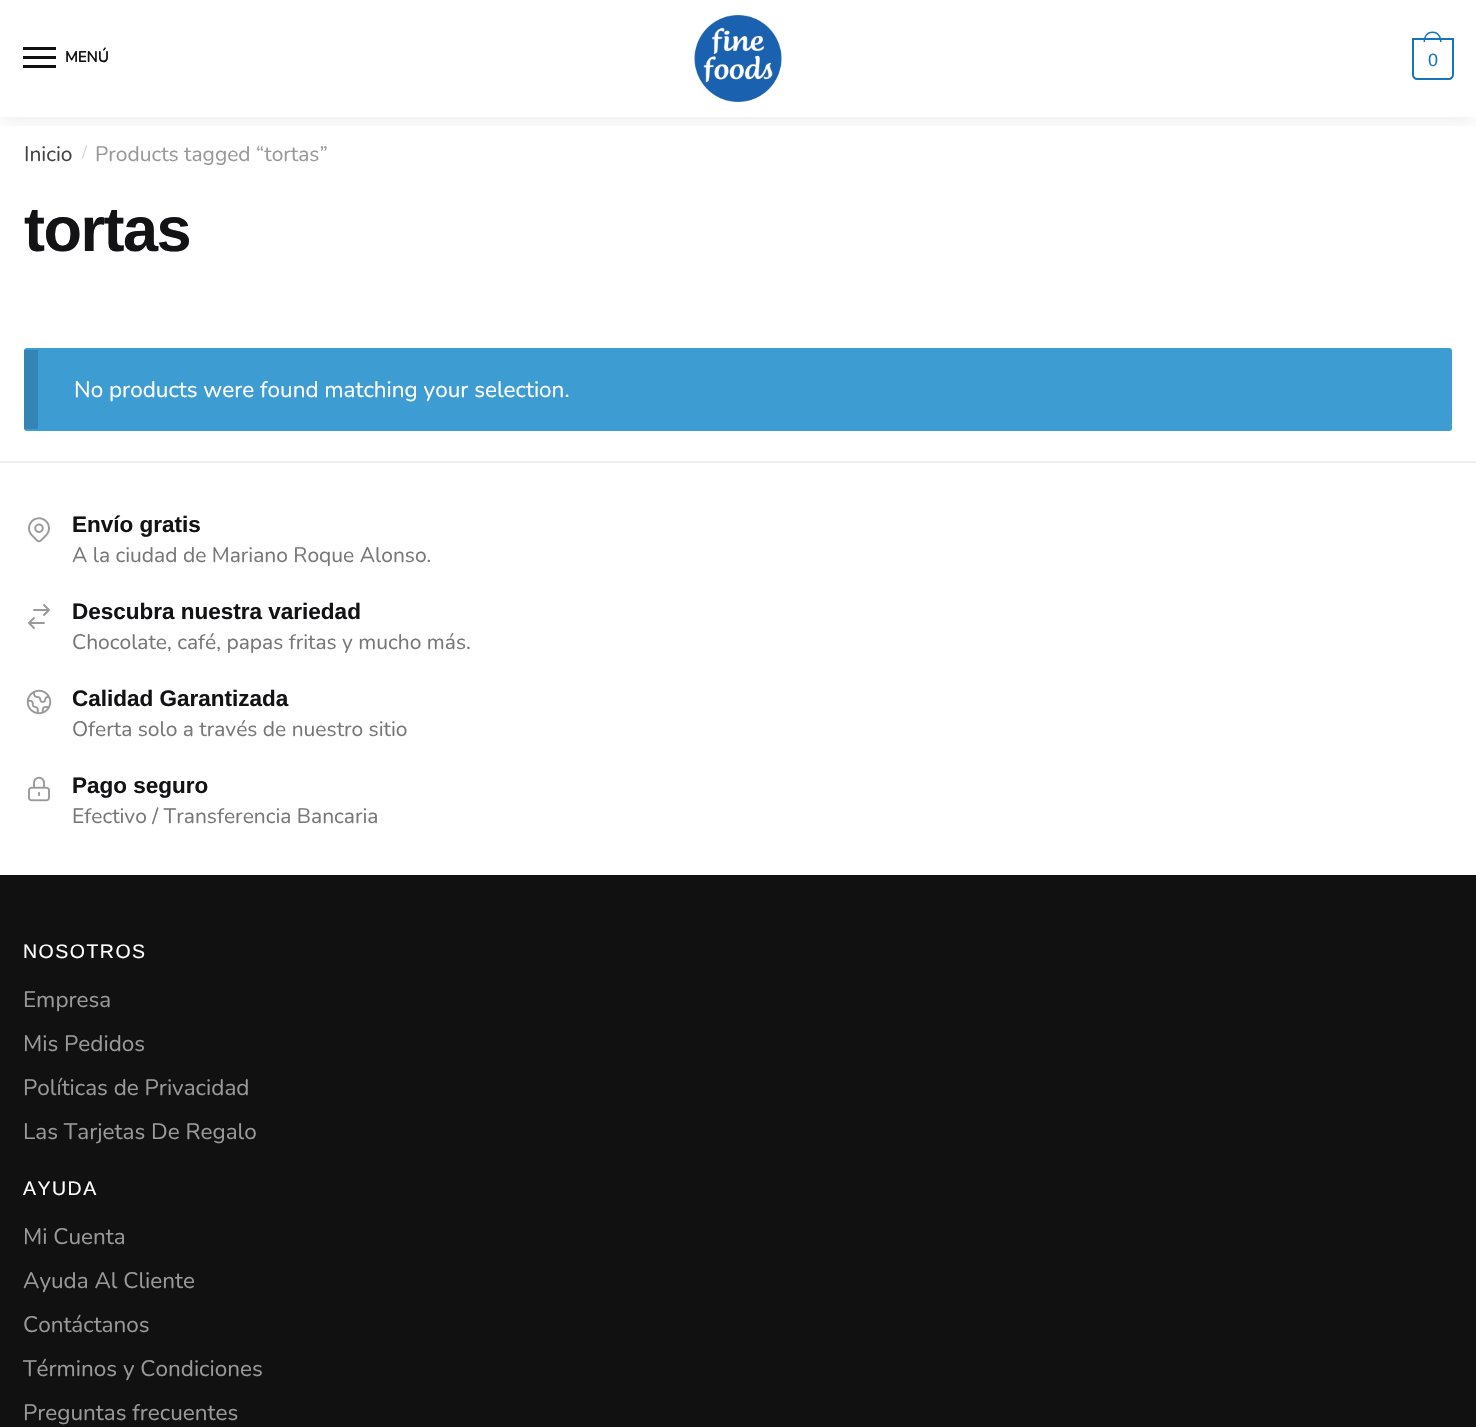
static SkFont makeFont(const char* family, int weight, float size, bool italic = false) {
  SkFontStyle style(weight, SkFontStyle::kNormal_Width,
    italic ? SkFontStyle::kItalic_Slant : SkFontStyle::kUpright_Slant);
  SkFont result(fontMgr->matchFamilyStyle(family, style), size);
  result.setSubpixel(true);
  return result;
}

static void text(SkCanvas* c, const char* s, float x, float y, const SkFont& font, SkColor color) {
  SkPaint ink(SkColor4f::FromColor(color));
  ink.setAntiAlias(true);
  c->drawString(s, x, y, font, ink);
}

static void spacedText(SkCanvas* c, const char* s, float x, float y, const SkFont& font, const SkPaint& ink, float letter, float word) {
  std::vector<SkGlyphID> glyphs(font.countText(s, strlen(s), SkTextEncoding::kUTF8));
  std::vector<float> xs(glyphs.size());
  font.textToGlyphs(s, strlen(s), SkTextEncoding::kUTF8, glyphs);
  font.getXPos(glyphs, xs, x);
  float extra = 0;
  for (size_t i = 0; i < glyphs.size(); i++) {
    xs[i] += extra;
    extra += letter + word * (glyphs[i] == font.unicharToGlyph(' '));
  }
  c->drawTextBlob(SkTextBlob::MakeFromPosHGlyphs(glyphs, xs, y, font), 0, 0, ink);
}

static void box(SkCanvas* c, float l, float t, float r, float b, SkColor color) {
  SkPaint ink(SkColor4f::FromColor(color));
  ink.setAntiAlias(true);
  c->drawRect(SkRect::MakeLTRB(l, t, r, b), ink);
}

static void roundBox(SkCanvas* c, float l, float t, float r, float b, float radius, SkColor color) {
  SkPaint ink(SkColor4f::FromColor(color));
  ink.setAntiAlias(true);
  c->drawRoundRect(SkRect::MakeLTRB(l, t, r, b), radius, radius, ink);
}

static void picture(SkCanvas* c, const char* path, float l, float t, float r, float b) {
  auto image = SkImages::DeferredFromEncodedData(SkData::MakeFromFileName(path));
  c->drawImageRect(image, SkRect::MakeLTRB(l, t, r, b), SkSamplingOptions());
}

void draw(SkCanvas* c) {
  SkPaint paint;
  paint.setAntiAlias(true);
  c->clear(0xffffffff);
  c->save();
  c->clipRect(SkRect::MakeLTRB(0, 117, 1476, 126));
  paint.setColor(0x14000000);
  paint.setMaskFilter(SkMaskFilter::MakeBlur(kNormal_SkBlurStyle, 11));
  c->drawRect(SkRect::MakeLTRB(0, 2, 1476, 119), paint);
  paint.setMaskFilter(nullptr);
  c->restore();
  box(c, 23, 47, 56, 50, 0xff111111);
  SkFont face1 = makeFont("Nunito", 700, 15);
  text(c, "MENÚ", 65, 62, face1, 0xff131315);
  box(c, 23, 56, 56, 59, 0xff111111);
  box(c, 23, 65, 56, 68, 0xff111111);
  picture(c, "img_01.png", 694, 15, 782, 102);
  paint.setStyle(SkPaint::kStroke_Style);
  paint.setStrokeWidth(2);
  paint.setColor(0xff1774bb);
  c->drawPath(SkPathBuilder().moveTo(1413, 39).lineTo(1453, 39).lineTo(1453, 75).cubicTo(1453, 77, 1451, 79, 1449, 79).lineTo(1417, 79).cubicTo(1415, 79, 1413, 77, 1413, 75).close().detach(), paint);
  paint.setStyle(SkPaint::kFill_Style);
  c->drawPath(SkPathBuilder(SkPathFillType::kEvenOdd).moveTo(1432.5f, 31.5f).cubicTo(1438.5f, 31.5f, 1441.5f, 36.5f, 1441.5f, 42).lineTo(1423.5f, 42).cubicTo(1423.5f, 36.5f, 1426.5f, 31.5f, 1432.5f, 31.5f).close().moveTo(1432.5f, 33).cubicTo(1438, 33, 1440, 37.5f, 1440, 42).lineTo(1425, 42).cubicTo(1425, 37.5f, 1427, 33, 1432.5f, 33).close().detach(), paint);
  SkFont face2 = makeFont("Liberation Sans", 400, 18);
  spacedText(c, "0", 1428, 66, face2, paint, -1, 0);
  SkFont face3 = makeFont("Nunito", 200, 21);
  text(c, "Inicio", 24, 161, face3, 0xff444444);
  SkFont face4 = makeFont("Nunito", 200, 17);
  text(c, "/", 82, 158, face4, 0xffd6d6d6);
  text(c, "Products tagged “tortas”", 95, 161, face3, 0xff999999);
  SkFont face5 = makeFont("Liberation Sans", 700, 63);
  paint.setColor(0xff131315);
  spacedText(c, "tortas", 24, 251, face5, paint, -1.5f, 0);
  roundBox(c, 24, 348, 1452, 431, 3, 0xff3d9cd2);
  box(c, 24, 350, 38, 429, 0x26000000);
  SkFont face6 = makeFont("Nunito", 200, 22.5f);
  text(c, "No products were found matching your selection.", 74, 397, face6, 0xffffffff);
  box(c, 0, 461, 1476, 463, 0xffeeeeee);
  SkFont face7 = makeFont("Liberation Sans", 700, 22.5f);
  text(c, "Envío gratis", 72, 532, face7, 0xff131315);
  picture(c, "img_02.png", 28, 517, 50, 543);
  text(c, "A la ciudad de Mariano Roque Alonso.", 72, 562, face3, 0xff777777);
  text(c, "Descubra nuestra variedad", 72, 619, face7, 0xff131315);
  paint.setStyle(SkPaint::kStroke_Style);
  paint.setStrokeWidth(1.9f);
  paint.setStrokeCap(SkPaint::kRound_Cap);
  paint.setStrokeJoin(SkPaint::kRound_Join);
  paint.setColor(0xff999999);
  c->drawPath(SkPathBuilder().moveTo(34, 610).lineTo(49, 610).moveTo(49, 610).lineTo(44, 605).moveTo(49, 610).lineTo(44, 615).moveTo(44, 623).lineTo(29, 623).moveTo(29, 623).lineTo(34, 628).moveTo(29, 623).lineTo(34, 618).detach(), paint);
  text(c, "Chocolate, café, papas fritas y mucho más.", 72, 649, face3, 0xff777777);
  text(c, "Calidad Garantizada", 72, 706, face7, 0xff131315);
  picture(c, "img_03.png", 26, 689, 52, 715);
  text(c, "Oferta solo a través de nuestro sitio", 72, 736, face3, 0xff777777);
  text(c, "Pago seguro", 72, 793, face7, 0xff131315);
  picture(c, "img_04.png", 28, 776, 50, 802);
  text(c, "Efectivo / Transferencia Bancaria", 72, 823, face3, 0xff777777);
  box(c, 0, 875, 1476, 1427, 0xff111111);
  SkFont face8 = makeFont("Liberation Sans", 400, 19.5f);
  paint.setStyle(SkPaint::kFill_Style);
  paint.setColor(0xffffffff);
  spacedText(c, "NOSOTROS", 23, 958, face8, paint, 1.5f, 0);
  text(c, "Empresa", 23, 1007, face6, 0xff999999);
  text(c, "Mis Pedidos", 23, 1051, face6, 0xff999999);
  text(c, "Políticas de Privacidad", 23, 1095, face6, 0xff999999);
  text(c, "Las Tarjetas De Regalo", 23, 1139, face6, 0xff999999);
  spacedText(c, "AYUDA", 23, 1195, face8, paint, 1.5f, 0);
  text(c, "Mi Cuenta", 23, 1244, face6, 0xff999999);
  text(c, "Ayuda Al Cliente", 23, 1288, face6, 0xff999999);
  text(c, "Contáctanos", 23, 1332, face6, 0xff999999);
  text(c, "Términos y Condiciones", 23, 1376, face6, 0xff999999);
  text(c, "Preguntas frecuentes", 23, 1420, face6, 0xff999999);
}
